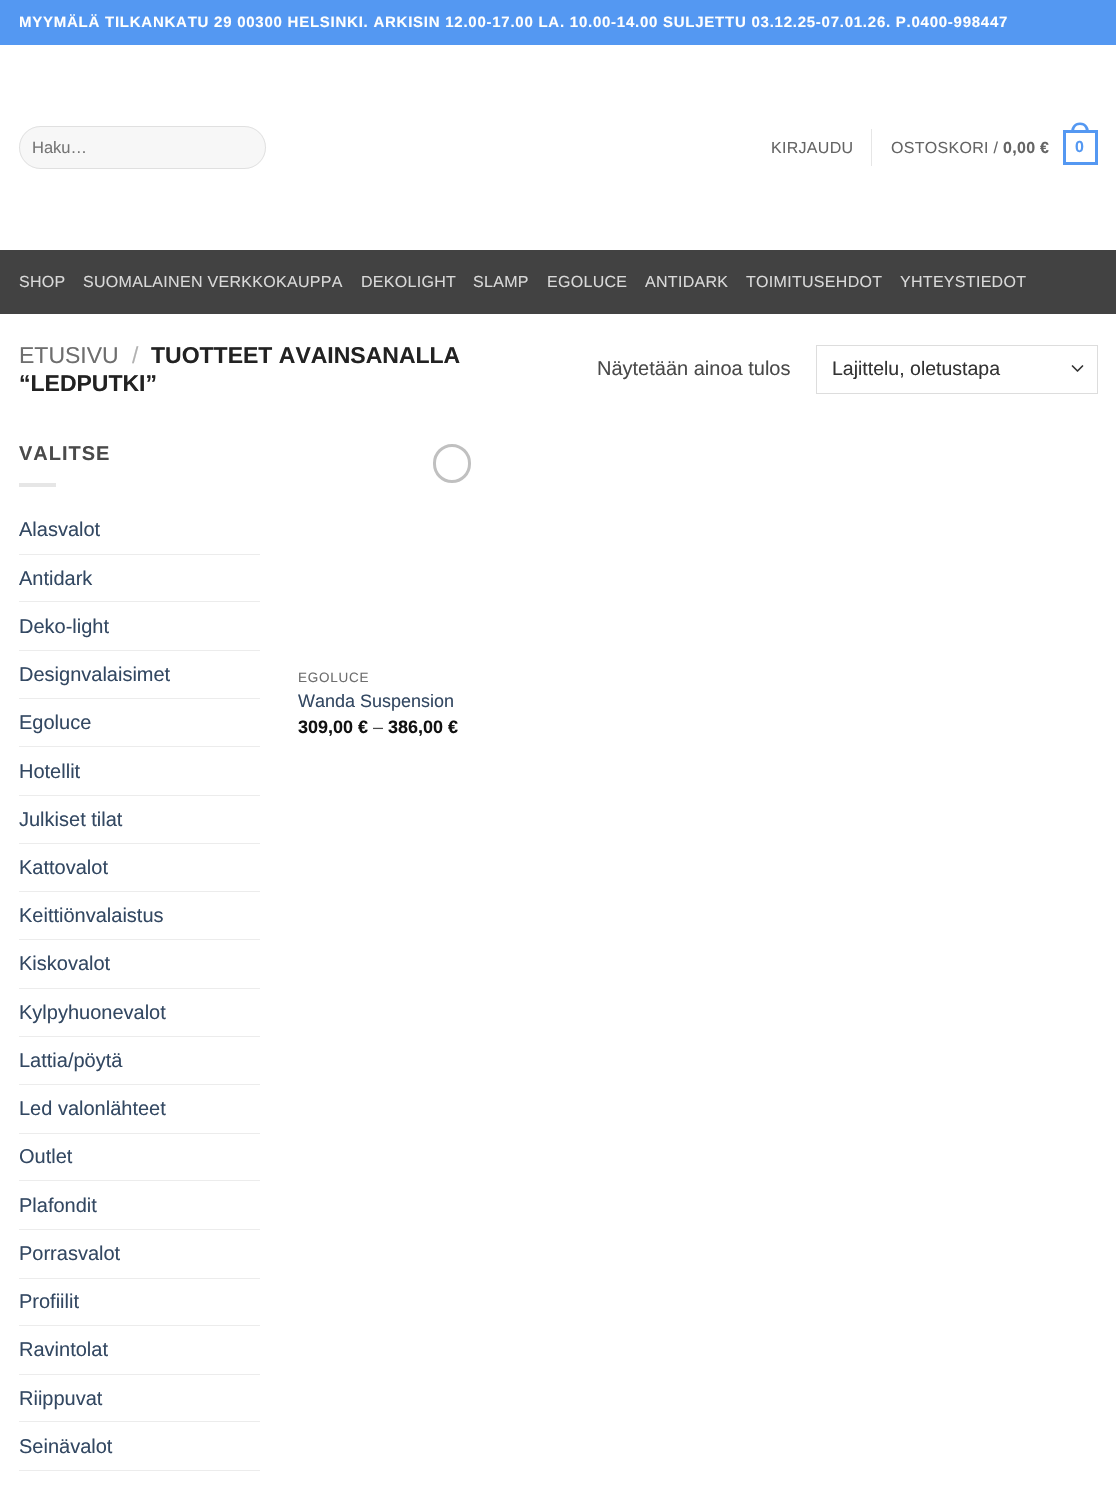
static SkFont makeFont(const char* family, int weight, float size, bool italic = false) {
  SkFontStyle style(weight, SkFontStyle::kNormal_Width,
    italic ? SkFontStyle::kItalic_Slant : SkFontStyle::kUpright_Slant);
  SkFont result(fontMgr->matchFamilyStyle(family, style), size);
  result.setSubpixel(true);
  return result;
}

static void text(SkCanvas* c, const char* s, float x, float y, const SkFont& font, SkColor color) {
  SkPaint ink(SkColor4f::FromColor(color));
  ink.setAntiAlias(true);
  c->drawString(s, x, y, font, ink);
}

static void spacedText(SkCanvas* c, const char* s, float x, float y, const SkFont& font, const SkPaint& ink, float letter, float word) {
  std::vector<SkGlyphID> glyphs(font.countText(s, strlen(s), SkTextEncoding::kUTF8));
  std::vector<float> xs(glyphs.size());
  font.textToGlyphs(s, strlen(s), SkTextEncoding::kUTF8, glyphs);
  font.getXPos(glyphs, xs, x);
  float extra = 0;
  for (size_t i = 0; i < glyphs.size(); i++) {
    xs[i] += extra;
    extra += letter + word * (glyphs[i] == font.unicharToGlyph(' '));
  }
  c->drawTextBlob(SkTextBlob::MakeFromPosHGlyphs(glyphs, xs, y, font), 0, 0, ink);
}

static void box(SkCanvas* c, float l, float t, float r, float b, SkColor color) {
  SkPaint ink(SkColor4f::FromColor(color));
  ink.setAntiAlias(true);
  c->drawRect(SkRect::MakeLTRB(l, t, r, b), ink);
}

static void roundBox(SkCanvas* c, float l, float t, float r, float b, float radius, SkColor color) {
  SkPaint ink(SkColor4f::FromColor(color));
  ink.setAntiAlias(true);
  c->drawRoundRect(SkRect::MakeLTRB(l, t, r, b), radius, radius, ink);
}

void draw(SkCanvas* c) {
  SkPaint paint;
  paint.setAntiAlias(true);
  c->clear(0xffffffff);
  box(c, 0, 0, 1116, 45, 0xff5498f2);
  SkFont face1 = makeFont("Liberation Sans", 700, 15);
  paint.setColor(0xffffffff);
  spacedText(c, "MYYMÄLÄ TILKANKATU 29 00300 HELSINKI. ARKISIN 12.00-17.00 LA. 10.00-14.00 SULJETTU 03.12.25-07.01.26. P.0400-998447", 19, 27, face1, paint, 0.75f, 0);
  roundBox(c, 19, 126, 266, 169, 21.5f, 0xfff7f7f7);
  paint.setStyle(SkPaint::kStroke_Style);
  paint.setStrokeWidth(1);
  paint.setColor(0x17000000);
  c->drawRoundRect(SkRect::MakeLTRB(19.5f, 126.5f, 265.5f, 168.5f), 21, 21, paint);
  SkFont face2 = makeFont("Liberation Sans", 400, 16.5f);
  text(c, "Haku…", 32, 153, face2, 0xff757575);
  SkFont face3 = makeFont("Liberation Sans", 400, 16);
  paint.setStyle(SkPaint::kFill_Style);
  paint.setColor(0xff656565);
  spacedText(c, "KIRJAUDU", 771, 153, face3, paint, 0.3f, 0);
  box(c, 871, 129, 872, 166, 0xffe6e6e6);
  spacedText(c, "OSTOSKORI /", 891, 153, face3, paint, 0.3f, 0);
  SkFont face4 = makeFont("Liberation Sans", 700, 16);
  spacedText(c, "0,00 €", 1003, 153, face4, paint, 0.3f, 0);
  paint.setStyle(SkPaint::kStroke_Style);
  paint.setStrokeWidth(3);
  paint.setColor(0xff5498f2);
  c->drawRect(SkRect::MakeLTRB(1064.5f, 131.5f, 1096.5f, 163.5f), paint);
  paint.setStyle(SkPaint::kFill_Style);
  c->drawPath(SkPathBuilder(SkPathFillType::kEvenOdd).moveTo(1080, 122.5f).cubicTo(1086, 122.5f, 1089, 127, 1089, 132.5f).lineTo(1071, 132.5f).cubicTo(1071, 127, 1074, 122.5f, 1080, 122.5f).close().moveTo(1080, 125).cubicTo(1084.5f, 125, 1086, 128.5f, 1086, 132.5f).lineTo(1074, 132.5f).cubicTo(1074, 128.5f, 1075.5f, 125, 1080, 125).close().detach(), paint);
  spacedText(c, "0", 1075, 152, face4, paint, 0.3f, 0);
  box(c, 0, 250, 1116, 314, 0xff424242);
  paint.setColor(0xffd9d9d9);
  spacedText(c, "SHOP", 19, 287, face3, paint, 0.3f, 0);
  spacedText(c, "SUOMALAINEN VERKKOKAUPPA", 83, 287, face3, paint, 0.3f, 0);
  spacedText(c, "DEKOLIGHT", 361, 287, face3, paint, 0.3f, 0);
  spacedText(c, "SLAMP", 473, 287, face3, paint, 0.3f, 0);
  spacedText(c, "EGOLUCE", 547, 287, face3, paint, 0.3f, 0);
  spacedText(c, "ANTIDARK", 645, 287, face3, paint, 0.3f, 0);
  spacedText(c, "TOIMITUSEHDOT", 746, 287, face3, paint, 0.3f, 0);
  spacedText(c, "YHTEYSTIEDOT", 900, 287, face3, paint, 0.3f, 0);
  SkFont face5 = makeFont("Liberation Sans", 400, 23);
  text(c, "ETUSIVU", 19, 363, face5, 0xff6e6e6e);
  text(c, "/", 132, 363, face5, 0xffb2b2b2);
  SkFont face6 = makeFont("Liberation Sans", 700, 23);
  text(c, "TUOTTEET AVAINSANALLA", 151, 363, face6, 0xff222222);
  text(c, "“LEDPUTKI”", 19, 391, face6, 0xff222222);
  SkFont face7 = makeFont("Liberation Sans", 400, 20);
  text(c, "Näytetään ainoa tulos", 597, 375, face7, 0xff4a4a4a);
  paint.setStyle(SkPaint::kStroke_Style);
  paint.setStrokeWidth(1.7f);
  paint.setStrokeCap(SkPaint::kRound_Cap);
  paint.setStrokeJoin(SkPaint::kRound_Join);
  paint.setColor(0xff333333);
  c->drawPath(SkPathBuilder().moveTo(1072.5f, 366).lineTo(1077.5f, 371).lineTo(1082.5f, 366).detach(), paint);
  paint.setStrokeWidth(1);
  paint.setStrokeCap(SkPaint::kButt_Cap);
  paint.setStrokeJoin(SkPaint::kMiter_Join);
  paint.setColor(0xffdddddd);
  c->drawRect(SkRect::MakeLTRB(816.5f, 345.5f, 1097.5f, 393.5f), paint);
  SkFont face8 = makeFont("Liberation Sans", 400, 19.5f);
  text(c, "Lajittelu, oletustapa", 832, 375, face8, 0xff333333);
  SkFont face9 = makeFont("Liberation Sans", 700, 20);
  paint.setStyle(SkPaint::kFill_Style);
  paint.setColor(0xff4a4a4a);
  spacedText(c, "VALITSE", 19, 460, face9, paint, 1, 0);
  box(c, 19, 483, 56, 487, 0xffe6e6e6);
  text(c, "Alasvalot", 19, 536, face7, 0xff334862);
  box(c, 19, 554, 260, 555, 0xffececec);
  text(c, "Antidark", 19, 585, face7, 0xff334862);
  box(c, 19, 601, 260, 602, 0xffececec);
  text(c, "Deko-light", 19, 633, face7, 0xff334862);
  box(c, 19, 650, 260, 651, 0xffececec);
  text(c, "Designvalaisimet", 19, 681, face7, 0xff334862);
  box(c, 19, 698, 260, 699, 0xffececec);
  text(c, "Egoluce", 19, 729, face7, 0xff334862);
  box(c, 19, 746, 260, 747, 0xffececec);
  text(c, "Hotellit", 19, 778, face7, 0xff334862);
  box(c, 19, 795, 260, 796, 0xffececec);
  text(c, "Julkiset tilat", 19, 826, face7, 0xff334862);
  box(c, 19, 843, 260, 844, 0xffececec);
  text(c, "Kattovalot", 19, 874, face7, 0xff334862);
  box(c, 19, 891, 260, 892, 0xffececec);
  text(c, "Keittiönvalaistus", 19, 922, face7, 0xff334862);
  box(c, 19, 939, 260, 940, 0xffececec);
  text(c, "Kiskovalot", 19, 970, face7, 0xff334862);
  box(c, 19, 988, 260, 989, 0xffececec);
  text(c, "Kylpyhuonevalot", 19, 1019, face7, 0xff334862);
  box(c, 19, 1036, 260, 1037, 0xffececec);
  text(c, "Lattia/pöytä", 19, 1067, face7, 0xff334862);
  box(c, 19, 1084, 260, 1085, 0xffececec);
  text(c, "Led valonlähteet", 19, 1115, face7, 0xff334862);
  box(c, 19, 1133, 260, 1134, 0xffececec);
  text(c, "Outlet", 19, 1163, face7, 0xff334862);
  box(c, 19, 1180, 260, 1181, 0xffececec);
  text(c, "Plafondit", 19, 1212, face7, 0xff334862);
  box(c, 19, 1229, 260, 1230, 0xffececec);
  text(c, "Porrasvalot", 19, 1260, face7, 0xff334862);
  box(c, 19, 1278, 260, 1279, 0xffececec);
  text(c, "Profiilit", 19, 1308, face7, 0xff334862);
  box(c, 19, 1325, 260, 1326, 0xffececec);
  text(c, "Ravintolat", 19, 1356, face7, 0xff334862);
  box(c, 19, 1374, 260, 1375, 0xffececec);
  text(c, "Riippuvat", 19, 1405, face7, 0xff334862);
  box(c, 19, 1421, 260, 1422, 0xffececec);
  text(c, "Seinävalot", 19, 1453, face7, 0xff334862);
  box(c, 19, 1470, 260, 1471, 0xffececec);
  paint.setStyle(SkPaint::kStroke_Style);
  paint.setStrokeWidth(3);
  paint.setColor(0xffc0c0c0);
  c->drawRoundRect(SkRect::MakeLTRB(434.5f, 445.5f, 469.5f, 481.5f), 17.5f, 17.5f, paint);
  SkFont face10 = makeFont("Liberation Sans", 400, 13.5f);
  paint.setStyle(SkPaint::kFill_Style);
  paint.setColor(0xff6e6e6e);
  spacedText(c, "EGOLUCE", 298, 682, face10, paint, 0.75f, 0);
  SkFont face11 = makeFont("Liberation Sans", 400, 18);
  text(c, "Wanda Suspension", 298, 707, face11, 0xff334862);
  SkFont face12 = makeFont("Liberation Sans", 700, 18);
  text(c, "309,00 €", 298, 733, face12, 0xff111111);
  text(c, "–", 373, 733, face11, 0xff4a4a4a);
  text(c, "386,00 €", 388, 733, face12, 0xff111111);
}
